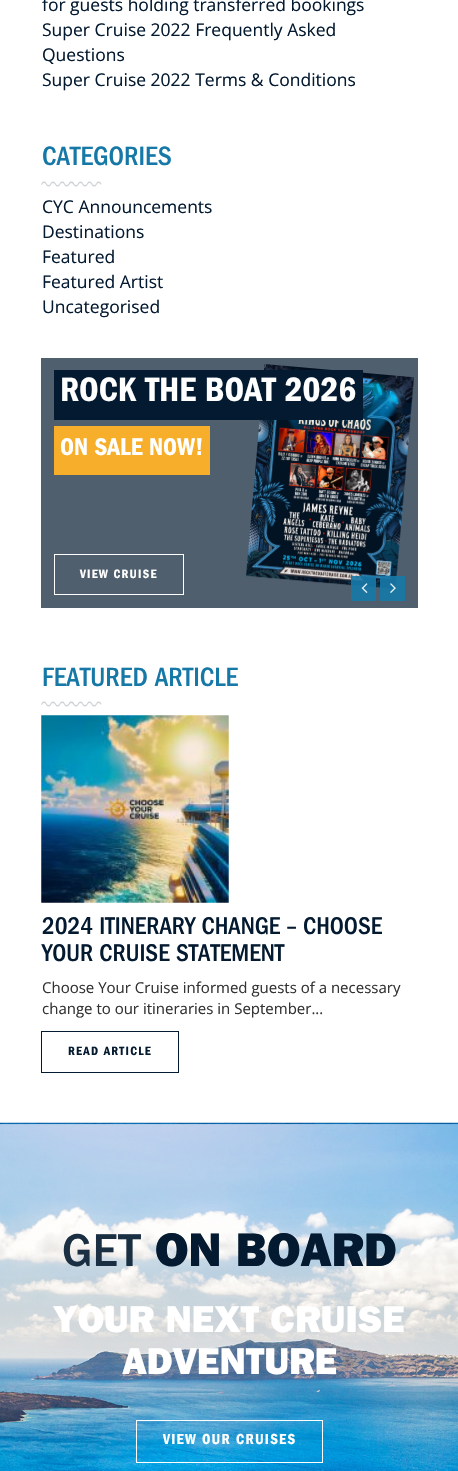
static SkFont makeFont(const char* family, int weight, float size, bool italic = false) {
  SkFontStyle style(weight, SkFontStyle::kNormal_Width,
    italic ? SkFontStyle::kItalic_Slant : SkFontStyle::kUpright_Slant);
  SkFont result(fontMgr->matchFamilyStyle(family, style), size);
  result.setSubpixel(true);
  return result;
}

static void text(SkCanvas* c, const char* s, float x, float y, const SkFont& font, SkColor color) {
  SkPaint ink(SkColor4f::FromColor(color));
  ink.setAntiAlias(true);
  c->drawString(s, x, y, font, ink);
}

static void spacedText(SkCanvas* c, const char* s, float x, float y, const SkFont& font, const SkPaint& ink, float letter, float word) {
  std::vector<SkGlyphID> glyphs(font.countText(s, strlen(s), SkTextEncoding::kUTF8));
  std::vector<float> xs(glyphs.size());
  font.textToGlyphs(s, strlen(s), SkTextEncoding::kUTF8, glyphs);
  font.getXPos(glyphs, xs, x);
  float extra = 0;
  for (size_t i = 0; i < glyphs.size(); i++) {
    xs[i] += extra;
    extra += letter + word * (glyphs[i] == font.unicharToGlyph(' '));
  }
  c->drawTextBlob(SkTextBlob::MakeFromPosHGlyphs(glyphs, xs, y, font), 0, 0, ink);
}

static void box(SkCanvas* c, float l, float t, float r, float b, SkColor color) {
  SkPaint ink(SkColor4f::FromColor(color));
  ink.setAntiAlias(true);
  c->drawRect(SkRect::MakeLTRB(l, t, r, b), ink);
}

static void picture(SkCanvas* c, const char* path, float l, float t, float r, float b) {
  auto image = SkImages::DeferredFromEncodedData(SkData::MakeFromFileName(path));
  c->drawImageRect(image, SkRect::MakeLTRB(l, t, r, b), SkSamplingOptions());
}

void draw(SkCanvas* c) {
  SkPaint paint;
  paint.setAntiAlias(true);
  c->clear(0xffffffff);
  SkFont face1 = makeFont("Open Sans", 400, 17.5f);
  text(c, "for guests holding transferred bookings", 42, 11, face1, 0xff041a30);
  text(c, "Super Cruise 2022 Frequently Asked", 42, 36, face1, 0xff041a30);
  text(c, "Questions", 42, 61, face1, 0xff041a30);
  text(c, "Super Cruise 2022 Terms & Conditions", 42, 86, face1, 0xff041a30);
  SkFont face2 = makeFont("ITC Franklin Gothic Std", 500, 27.5f);
  text(c, "CATEGORIES", 42, 165, face2, 0xff1678a7);
  picture(c, "img_01.png", 41, 181, 102, 187);
  text(c, "CYC Announcements", 42, 213, face1, 0xff041a30);
  text(c, "Destinations", 42, 238, face1, 0xff041a30);
  text(c, "Featured", 42, 263, face1, 0xff041a30);
  text(c, "Featured Artist", 42, 288, face1, 0xff041a30);
  text(c, "Uncategorised", 42, 313, face1, 0xff041a30);
  box(c, 41, 358, 418, 608, 0xff4f5f6e);
  picture(c, "img_02.png", 246, 364, 414, 589);
  box(c, 54, 370, 363, 420, 0xff041a30);
  SkFont face3 = makeFont("ITC Franklin Gothic Std", 600, 35);
  text(c, "ROCK THE BOAT 2026", 60, 401, face3, 0xffffffff);
  box(c, 54, 426, 210, 475, 0xfff7ae2a);
  SkFont face4 = makeFont("ITC Franklin Gothic Std", 600, 25);
  text(c, "ON SALE NOW!", 60, 455, face4, 0xffffffff);
  paint.setStyle(SkPaint::kStroke_Style);
  paint.setStrokeWidth(1);
  paint.setColor(0xffffffff);
  c->drawRect(SkRect::MakeLTRB(54.5f, 554.5f, 183.5f, 594.5f), paint);
  SkFont face5 = makeFont("ITC Franklin Gothic Std", 600, 12.5f);
  paint.setStyle(SkPaint::kFill_Style);
  spacedText(c, "VIEW CRUISE", 80, 578, face5, paint, 1.25f, 0);
  box(c, 351, 576, 376, 601, 0xe61678a7);
  picture(c, "img_03.png", 361, 583, 368, 593);
  box(c, 380, 576, 405, 601, 0xe61678a7);
  picture(c, "img_04.png", 390, 583, 396, 593);
  text(c, "FEATURED ARTICLE", 42, 686, face2, 0xff1678a7);
  picture(c, "img_01.png", 41, 701, 102, 707);
  picture(c, "img_05.png", 41, 715, 229, 903);
  SkFont face6 = makeFont("ITC Franklin Gothic Std", 500, 25);
  text(c, "2024 ITINERARY CHANGE – CHOOSE", 42, 934, face6, 0xff041a30);
  text(c, "YOUR CRUISE STATEMENT", 42, 961, face6, 0xff041a30);
  SkFont face7 = makeFont("Open Sans", 400, 15);
  text(c, "Choose Your Cruise informed guests of a necessary", 42, 993, face7, 0xff333333);
  text(c, "change to our itineraries in September...", 42, 1014, face7, 0xff333333);
  paint.setStyle(SkPaint::kStroke_Style);
  paint.setColor(0xff041a30);
  c->drawRect(SkRect::MakeLTRB(41.5f, 1031.5f, 178.5f, 1072.5f), paint);
  paint.setStyle(SkPaint::kFill_Style);
  spacedText(c, "READ ARTICLE", 68, 1055, face5, paint, 1.25f, 0);
  picture(c, "img_06.png", 0, 1122, 458, 1471);
  box(c, 0, 1123, 458, 1124, 0x3d1678a7);
  SkFont face8 = makeFont("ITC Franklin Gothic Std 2", 500, 47.5f);
  text(c, "GET", 62, 1266, face8, 0xff1b2f43);
  SkFont face9 = makeFont("ITC Franklin Gothic Std", 700, 47.5f);
  text(c, "ON BOARD", 155, 1266, face9, 0xff041a30);
  SkFont face10 = makeFont("ITC Franklin Gothic Std", 700, 37.5f);
  text(c, "YOUR NEXT CRUISE", 53, 1332, face10, 0xffffffff);
  text(c, "ADVENTURE", 122, 1374, face10, 0xffffffff);
  paint.setStyle(SkPaint::kStroke_Style);
  paint.setColor(0xffffffff);
  c->drawRect(SkRect::MakeLTRB(136.5f, 1420.5f, 322.5f, 1462.5f), paint);
  SkFont face11 = makeFont("ITC Franklin Gothic Std", 600, 15);
  paint.setStyle(SkPaint::kFill_Style);
  spacedText(c, "VIEW OUR CRUISES", 163, 1444, face11, paint, 1.25f, 0);
}
